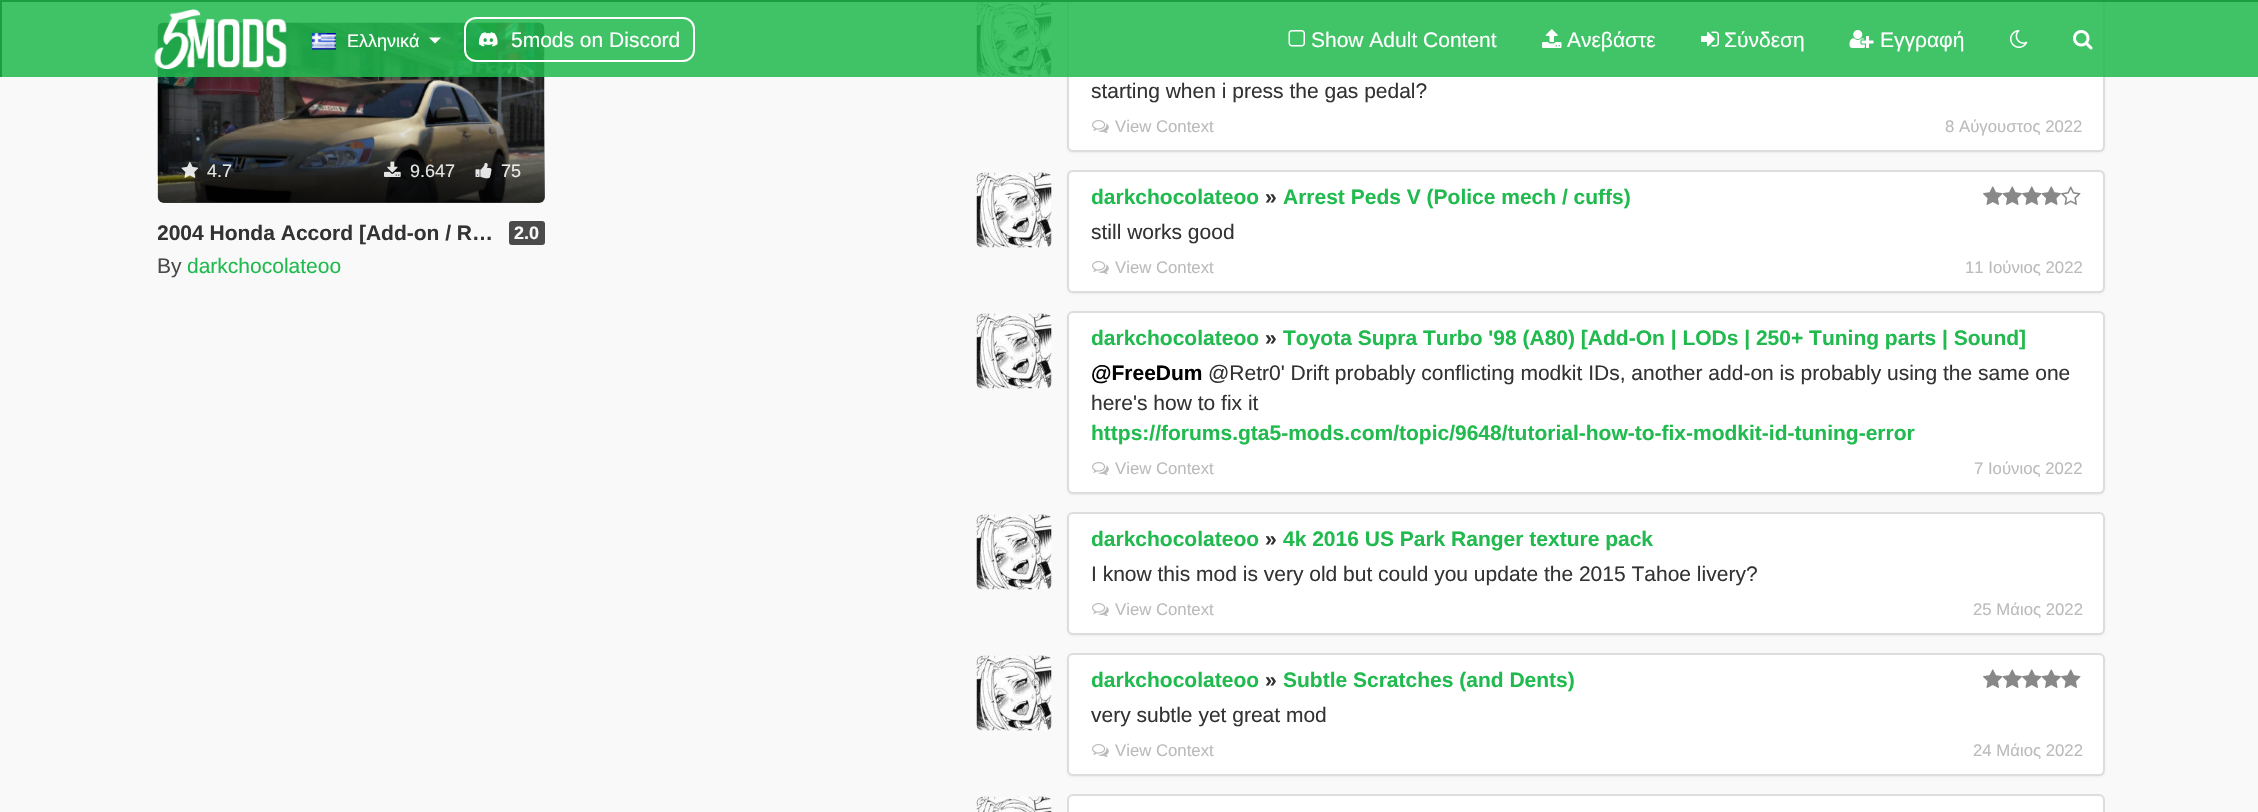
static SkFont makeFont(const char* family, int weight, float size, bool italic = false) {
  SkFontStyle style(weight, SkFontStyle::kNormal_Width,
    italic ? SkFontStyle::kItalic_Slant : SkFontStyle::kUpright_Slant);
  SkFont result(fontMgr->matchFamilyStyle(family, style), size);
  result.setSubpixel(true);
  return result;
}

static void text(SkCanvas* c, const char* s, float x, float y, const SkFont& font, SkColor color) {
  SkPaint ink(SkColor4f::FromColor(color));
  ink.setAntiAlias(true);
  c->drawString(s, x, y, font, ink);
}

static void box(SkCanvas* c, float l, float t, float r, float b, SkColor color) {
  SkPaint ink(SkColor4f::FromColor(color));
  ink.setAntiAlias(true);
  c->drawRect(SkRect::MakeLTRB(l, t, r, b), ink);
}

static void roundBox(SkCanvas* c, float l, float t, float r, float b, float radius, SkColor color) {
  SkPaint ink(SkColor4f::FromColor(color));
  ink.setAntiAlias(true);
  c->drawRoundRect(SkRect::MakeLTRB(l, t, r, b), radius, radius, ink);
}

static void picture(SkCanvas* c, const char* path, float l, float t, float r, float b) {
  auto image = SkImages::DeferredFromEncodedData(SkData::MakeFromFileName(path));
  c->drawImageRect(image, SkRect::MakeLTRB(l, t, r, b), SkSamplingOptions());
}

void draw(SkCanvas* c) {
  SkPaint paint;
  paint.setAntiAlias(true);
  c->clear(0xfff9f9f9);
  picture(c, "img_10.png", 157, 22, 545, 203);
  {
    const SkColor colors[] = {0x00000000, 0x40000000, 0xbf000000};
    const float stops[] = {0.5f, 0.75f, 1};
    const SkPoint ends[] = {{351, 22}, {351, 203}};
    paint.setShader(SkGradientShader::MakeLinear(ends, colors, stops, 3, SkTileMode::kClamp));
    paint.setAlpha(255);
  }
  c->drawRoundRect(SkRect::MakeLTRB(158, 23, 545, 203), 6, 6, paint);
  picture(c, "img_14.png", 976, 2, 1052, 77);
  paint.setShader(nullptr);
  paint.setColor(0x0d000000);
  paint.setMaskFilter(SkMaskFilter::MakeBlur(kNormal_SkBlurStyle, 1));
  c->drawRoundRect(SkRect::MakeLTRB(1067, 0, 2105, 153), 6, 6, paint);
  paint.setMaskFilter(nullptr);
  paint.setColor(0xffffffff);
  c->drawRoundRect(SkRect::MakeLTRB(1068, 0, 2104, 151), 5, 5, paint);
  paint.setStyle(SkPaint::kStroke_Style);
  paint.setStrokeWidth(2);
  paint.setColor(0xffdddddd);
  c->drawRoundRect(SkRect::MakeLTRB(1068, 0, 2104, 151), 5, 5, paint);
  box(c, 2, 2, 2258, 77, 0xd920ba4e);
  box(c, 0, 0, 2258, 2, 0xff1b9e42);
  box(c, 0, 0, 2, 77, 0xff1b9e42);
  picture(c, "img_01.png", 154, 9, 287, 69);
  picture(c, "img_02.png", 312, 33, 336, 50);
  SkFont face1 = makeFont("Liberation Sans", 400, 18);
  text(c, "Ελληνικά", 347, 47, face1, 0xffffffff);
  paint.setStyle(SkPaint::kFill_Style);
  paint.setColor(0xffffffff);
  c->drawPath(SkPathBuilder().moveTo(429, 37.5f).lineTo(441, 37.5f).lineTo(435, 43.5f).close().detach(), paint);
  paint.setStyle(SkPaint::kStroke_Style);
  c->drawRoundRect(SkRect::MakeLTRB(465, 18, 694, 61), 11, 11, paint);
  picture(c, "img_03.png", 478, 32, 498, 47);
  SkFont face2 = makeFont("Liberation Sans", 400, 21);
  text(c, "5mods on Discord", 511, 47, face2, 0xffffffff);
  picture(c, "img_04.png", 1288, 30, 1305, 47);
  text(c, "Show Adult Content", 1311, 47, face2, 0xffffffff);
  picture(c, "img_05.png", 1542, 29, 1562, 48);
  text(c, "Ανεβάστε", 1567, 47, face2, 0xffffffff);
  picture(c, "img_06.png", 1701, 31, 1719, 47);
  text(c, "Σύνδεση", 1724, 47, face2, 0xffffffff);
  picture(c, "img_07.png", 1849, 30, 1874, 48);
  text(c, "Εγγραφή", 1880, 47, face2, 0xffffffff);
  picture(c, "img_08.png", 2010, 30, 2028, 48);
  picture(c, "img_09.png", 2073, 30, 2093, 50);
  picture(c, "img_11.png", 181, 162, 199, 178);
  text(c, "4.7", 207, 177, face1, 0xffe4e5e5);
  picture(c, "img_12.png", 384, 161, 401, 177);
  text(c, "9.647", 410, 177, face1, 0xffe4e5e5);
  picture(c, "img_13.png", 475, 162, 492, 179);
  text(c, "75", 501, 177, face1, 0xffeaeae9);
  c->save();
  c->clipRect(SkRect::MakeLTRB(158, 218, 494, 248));
  SkFont face3 = makeFont("Liberation Sans", 700, 21);
  text(c, "2004 Honda Accord [Add-on / R…", 157, 240, face3, 0xff333333);
  c->restore();
  roundBox(c, 509, 221, 545, 245, 3, 0xff4b4b4b);
  SkFont face4 = makeFont("Liberation Sans", 700, 18);
  text(c, "2.0", 514, 239, face4, 0xfff9f9f9);
  text(c, "By", 157, 273, face2, 0xff4b4b4b);
  text(c, "darkchocolateoo", 187, 273, face2, 0xff20ba4e);
  text(c, "starting when i press the gas pedal?", 1091, 98, face2, 0xff333333);
  picture(c, "img_15.png", 1092, 120, 1109, 134);
  SkFont face5 = makeFont("Liberation Sans", 400, 16.75f);
  text(c, "View Context", 1115, 132, face5, 0xffbbbbbb);
  text(c, "8 Αύγουστος 2022", 1945, 132, face5, 0xffbbbbbb);
  picture(c, "img_16.png", 976, 172, 1052, 248);
  paint.setStyle(SkPaint::kFill_Style);
  paint.setColor(0x0d000000);
  paint.setMaskFilter(SkMaskFilter::MakeBlur(kNormal_SkBlurStyle, 1));
  c->drawRoundRect(SkRect::MakeLTRB(1067, 171, 2105, 294), 6, 6, paint);
  paint.setMaskFilter(nullptr);
  paint.setColor(0xffffffff);
  c->drawRoundRect(SkRect::MakeLTRB(1068, 171, 2104, 292), 5, 5, paint);
  paint.setStyle(SkPaint::kStroke_Style);
  paint.setColor(0xffdddddd);
  c->drawRoundRect(SkRect::MakeLTRB(1068, 171, 2104, 292), 5, 5, paint);
  text(c, "darkchocolateoo", 1091, 204, face3, 0xff20ba4e);
  text(c, "»", 1265, 204, face3, 0xff333333);
  text(c, "Arrest Peds V (Police mech / cuffs)", 1283, 204, face3, 0xff20ba4e);
  picture(c, "img_17.png", 1983, 186, 2003, 205);
  picture(c, "img_18.png", 2002, 186, 2022, 205);
  picture(c, "img_17.png", 2022, 186, 2042, 205);
  picture(c, "img_18.png", 2041, 186, 2061, 205);
  picture(c, "img_19.png", 2061, 186, 2081, 205);
  text(c, "still works good", 1091, 239, face2, 0xff333333);
  picture(c, "img_15.png", 1092, 261, 1109, 275);
  text(c, "View Context", 1115, 273, face5, 0xffbbbbbb);
  text(c, "11 Ιούνιος 2022", 1965, 273, face5, 0xffbbbbbb);
  picture(c, "img_16.png", 976, 313, 1052, 389);
  paint.setStyle(SkPaint::kFill_Style);
  paint.setColor(0x0d000000);
  paint.setMaskFilter(SkMaskFilter::MakeBlur(kNormal_SkBlurStyle, 1));
  c->drawRoundRect(SkRect::MakeLTRB(1067, 312, 2105, 495), 6, 6, paint);
  paint.setMaskFilter(nullptr);
  paint.setColor(0xffffffff);
  c->drawRoundRect(SkRect::MakeLTRB(1068, 312, 2104, 493), 5, 5, paint);
  paint.setStyle(SkPaint::kStroke_Style);
  paint.setColor(0xffdddddd);
  c->drawRoundRect(SkRect::MakeLTRB(1068, 312, 2104, 493), 5, 5, paint);
  text(c, "darkchocolateoo", 1091, 345, face3, 0xff20ba4e);
  text(c, "»", 1265, 345, face3, 0xff333333);
  text(c, "Toyota Supra Turbo '98 (A80) [Add-On | LODs | 250+ Tuning parts | Sound]", 1283, 345, face3, 0xff20ba4e);
  text(c, "@FreeDum", 1091, 380, face3, 0xff000000);
  text(c, "@Retr0' Drift probably conflicting modkit IDs, another add-on is probably using the same one", 1208, 380, face2, 0xff333333);
  text(c, "here's how to fix it", 1091, 410, face2, 0xff333333);
  text(c, "https://forums.gta5-mods.com/topic/9648/tutorial-how-to-fix-modkit-id-tuning-error", 1091, 440, face3, 0xff20ba4e);
  picture(c, "img_15.png", 1092, 462, 1109, 476);
  text(c, "View Context", 1115, 474, face5, 0xffbbbbbb);
  text(c, "7 Ιούνιος 2022", 1974, 474, face5, 0xffbbbbbb);
  picture(c, "img_16.png", 976, 514, 1052, 590);
  paint.setStyle(SkPaint::kFill_Style);
  paint.setColor(0x0d000000);
  paint.setMaskFilter(SkMaskFilter::MakeBlur(kNormal_SkBlurStyle, 1));
  c->drawRoundRect(SkRect::MakeLTRB(1067, 513, 2105, 636), 6, 6, paint);
  paint.setMaskFilter(nullptr);
  paint.setColor(0xffffffff);
  c->drawRoundRect(SkRect::MakeLTRB(1068, 513, 2104, 634), 5, 5, paint);
  paint.setStyle(SkPaint::kStroke_Style);
  paint.setColor(0xffdddddd);
  c->drawRoundRect(SkRect::MakeLTRB(1068, 513, 2104, 634), 5, 5, paint);
  text(c, "darkchocolateoo", 1091, 546, face3, 0xff20ba4e);
  text(c, "»", 1265, 546, face3, 0xff333333);
  text(c, "4k 2016 US Park Ranger texture pack", 1283, 546, face3, 0xff20ba4e);
  text(c, "I know this mod is very old but could you update the 2015 Tahoe livery?", 1091, 581, face2, 0xff333333);
  picture(c, "img_15.png", 1092, 603, 1109, 617);
  text(c, "View Context", 1115, 615, face5, 0xffbbbbbb);
  text(c, "25 Μάιος 2022", 1973, 615, face5, 0xffbbbbbb);
  picture(c, "img_16.png", 976, 655, 1052, 731);
  paint.setStyle(SkPaint::kFill_Style);
  paint.setColor(0x0d000000);
  paint.setMaskFilter(SkMaskFilter::MakeBlur(kNormal_SkBlurStyle, 1));
  c->drawRoundRect(SkRect::MakeLTRB(1067, 654, 2105, 777), 6, 6, paint);
  paint.setMaskFilter(nullptr);
  paint.setColor(0xffffffff);
  c->drawRoundRect(SkRect::MakeLTRB(1068, 654, 2104, 775), 5, 5, paint);
  paint.setStyle(SkPaint::kStroke_Style);
  paint.setColor(0xffdddddd);
  c->drawRoundRect(SkRect::MakeLTRB(1068, 654, 2104, 775), 5, 5, paint);
  text(c, "darkchocolateoo", 1091, 687, face3, 0xff20ba4e);
  text(c, "»", 1265, 687, face3, 0xff333333);
  text(c, "Subtle Scratches (and Dents)", 1283, 687, face3, 0xff20ba4e);
  picture(c, "img_17.png", 1983, 669, 2003, 688);
  picture(c, "img_18.png", 2002, 669, 2022, 688);
  picture(c, "img_17.png", 2022, 669, 2042, 688);
  picture(c, "img_18.png", 2041, 669, 2061, 688);
  picture(c, "img_17.png", 2061, 669, 2081, 688);
  text(c, "very subtle yet great mod", 1091, 722, face2, 0xff333333);
  picture(c, "img_15.png", 1092, 744, 1109, 758);
  text(c, "View Context", 1115, 756, face5, 0xffbbbbbb);
  text(c, "24 Μάιος 2022", 1973, 756, face5, 0xffbbbbbb);
  picture(c, "img_20.png", 976, 796, 1052, 812);
  paint.setStyle(SkPaint::kFill_Style);
  paint.setColor(0xffffffff);
  c->drawRoundRect(SkRect::MakeLTRB(1068, 795, 2104, 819), 5, 5, paint);
  paint.setStyle(SkPaint::kStroke_Style);
  paint.setColor(0xffdddddd);
  c->drawRoundRect(SkRect::MakeLTRB(1068, 795, 2104, 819), 5, 5, paint);
}
